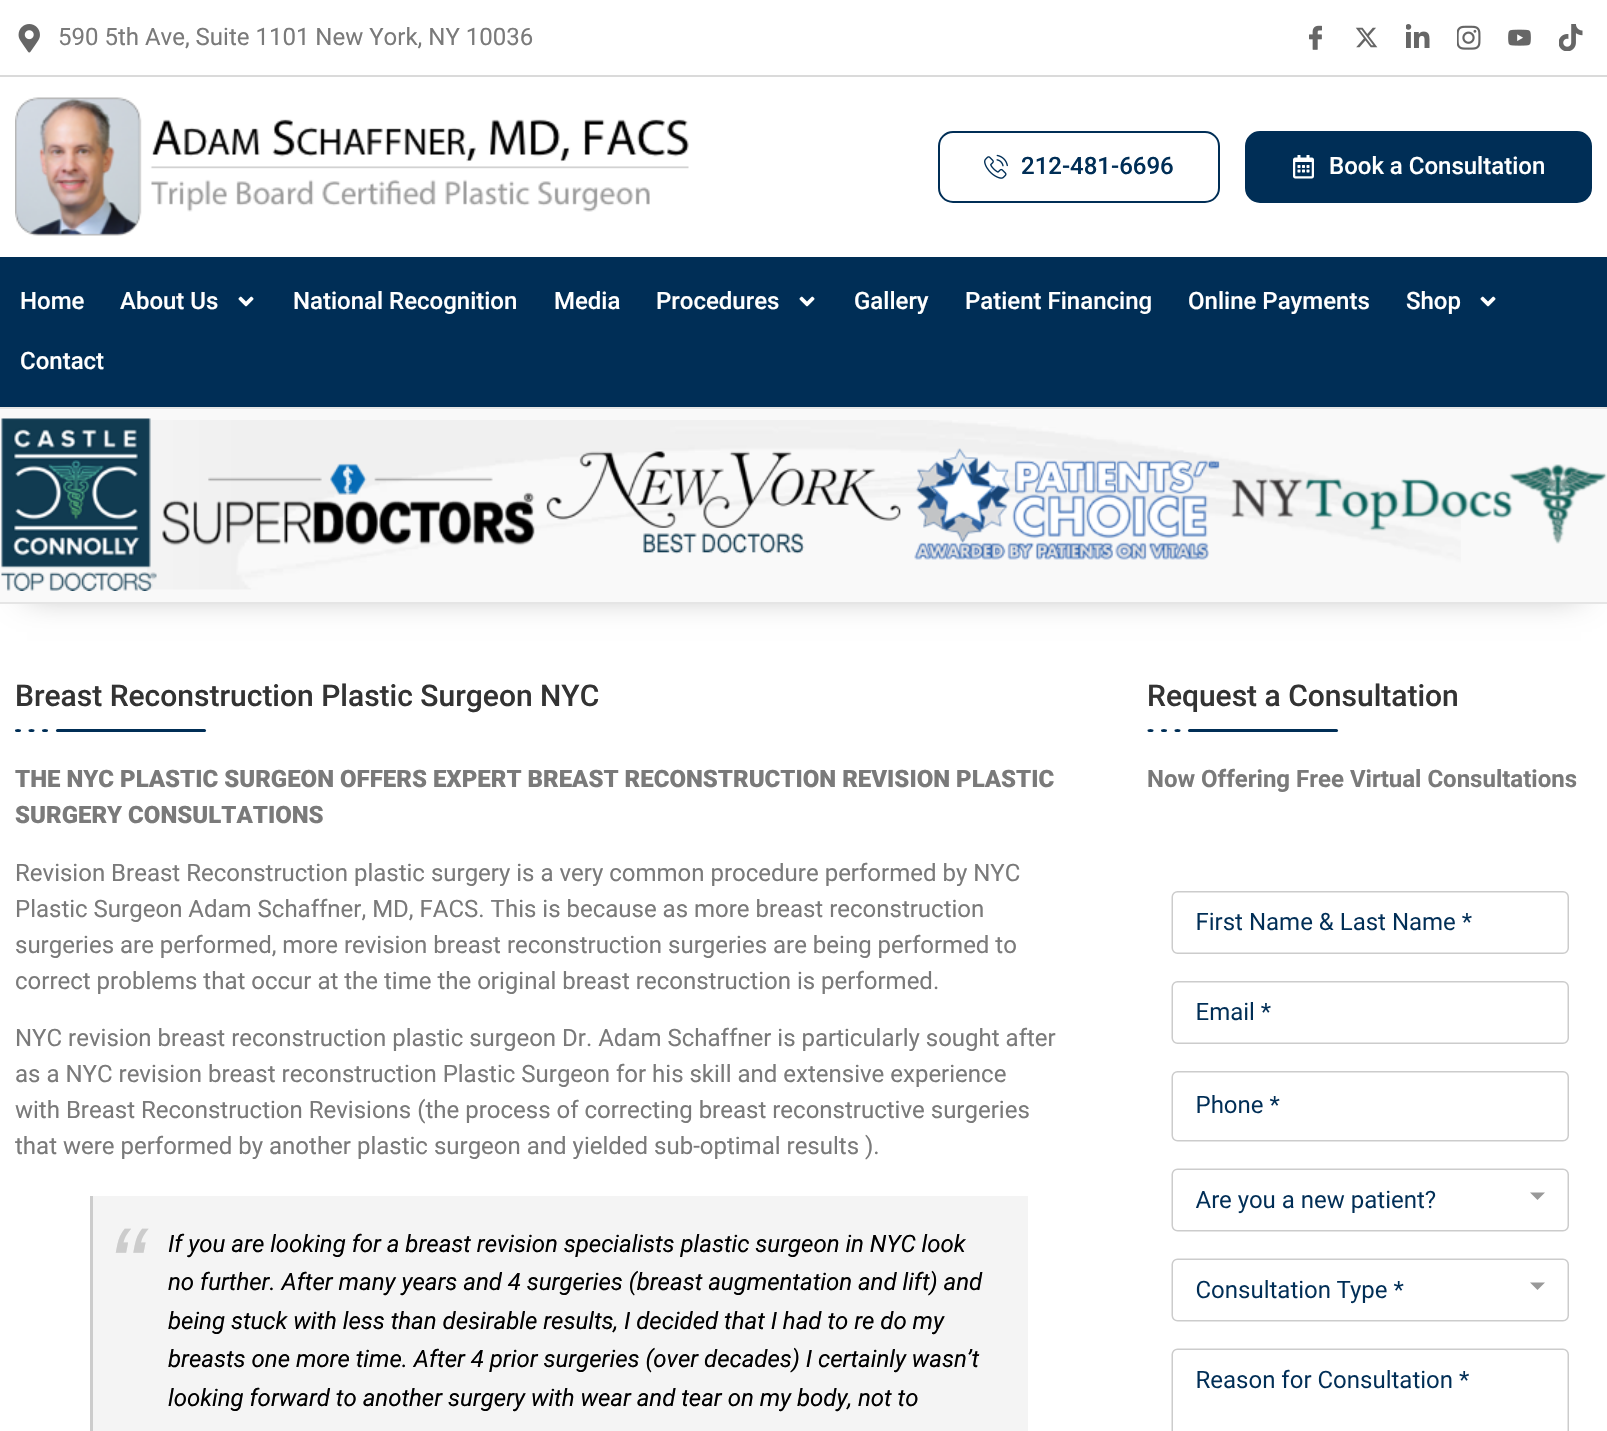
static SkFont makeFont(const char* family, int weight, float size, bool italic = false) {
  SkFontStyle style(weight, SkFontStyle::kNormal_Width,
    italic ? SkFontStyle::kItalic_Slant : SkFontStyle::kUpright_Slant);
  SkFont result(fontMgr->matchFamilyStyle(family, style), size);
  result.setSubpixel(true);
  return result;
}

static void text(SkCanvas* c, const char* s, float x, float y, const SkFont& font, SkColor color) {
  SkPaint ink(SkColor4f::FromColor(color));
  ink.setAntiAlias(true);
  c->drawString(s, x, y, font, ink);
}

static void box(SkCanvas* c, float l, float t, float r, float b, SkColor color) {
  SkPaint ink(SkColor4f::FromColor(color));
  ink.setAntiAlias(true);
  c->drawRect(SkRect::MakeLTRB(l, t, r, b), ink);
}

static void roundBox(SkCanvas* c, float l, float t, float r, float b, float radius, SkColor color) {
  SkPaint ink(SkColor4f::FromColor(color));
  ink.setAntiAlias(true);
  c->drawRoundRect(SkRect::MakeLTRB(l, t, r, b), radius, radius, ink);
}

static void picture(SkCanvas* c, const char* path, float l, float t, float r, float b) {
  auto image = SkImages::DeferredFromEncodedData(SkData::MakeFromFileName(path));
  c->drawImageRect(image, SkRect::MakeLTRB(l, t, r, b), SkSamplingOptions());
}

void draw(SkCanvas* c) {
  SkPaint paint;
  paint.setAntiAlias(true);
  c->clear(0xffffffff);
  box(c, 0, 75, 1607, 77, 0xffdadada);
  picture(c, "img_01.png", 18, 24, 40, 53);
  SkFont face1 = makeFont("Roboto", 400, 24);
  text(c, "590 5th Ave, Suite 1101 New York, NY 10036", 58, 45, face1, 0xff7a7a7a);
  picture(c, "img_02.png", 1309, 25, 1322, 50);
  picture(c, "img_03.png", 1355, 27, 1378, 48);
  picture(c, "img_04.png", 1406, 24, 1430, 48);
  picture(c, "img_05.png", 1457, 25, 1481, 50);
  picture(c, "img_06.png", 1508, 29, 1531, 46);
  picture(c, "img_07.png", 1559, 24, 1583, 51);
  picture(c, "img_08.png", 15, 97, 689, 236);
  paint.setStyle(SkPaint::kStroke_Style);
  paint.setStrokeWidth(2);
  paint.setColor(0xff002e56);
  c->drawRoundRect(SkRect::MakeLTRB(939, 132, 1219, 202), 14, 14, paint);
  picture(c, "img_09.png", 984, 154, 1008, 179);
  SkFont face2 = makeFont("Roboto", 500, 24);
  text(c, "212-481-6696", 1021, 174, face2, 0xff002e56);
  paint.setStyle(SkPaint::kFill_Style);
  c->drawRoundRect(SkRect::MakeLTRB(1246, 132, 1591, 202), 14, 14, paint);
  paint.setStyle(SkPaint::kStroke_Style);
  c->drawRoundRect(SkRect::MakeLTRB(1246, 132, 1591, 202), 14, 14, paint);
  picture(c, "img_10.png", 1293, 155, 1314, 179);
  text(c, "Book a Consultation", 1329, 174, face2, 0xffffffff);
  box(c, 0, 257, 1607, 407, 0xff002e56);
  text(c, "Home", 20, 309, face2, 0xffffffff);
  text(c, "About Us", 120, 309, face2, 0xffffffff);
  picture(c, "img_11.png", 238, 296, 254, 307);
  text(c, "National Recognition", 293, 309, face2, 0xffffffff);
  text(c, "Media", 554, 309, face2, 0xffffffff);
  text(c, "Procedures", 656, 309, face2, 0xffffffff);
  picture(c, "img_11.png", 799, 296, 815, 307);
  text(c, "Gallery", 854, 309, face2, 0xffffffff);
  text(c, "Patient Financing", 965, 309, face2, 0xffffffff);
  text(c, "Online Payments", 1188, 309, face2, 0xffffffff);
  text(c, "Shop", 1406, 309, face2, 0xffffffff);
  picture(c, "img_11.png", 1480, 296, 1496, 307);
  text(c, "Contact", 20, 369, face2, 0xffffffff);
  paint.setStyle(SkPaint::kFill_Style);
  paint.setColor(0x57000000);
  paint.setMaskFilter(SkMaskFilter::MakeBlur(kNormal_SkBlurStyle, 16));
  c->drawRect(SkRect::MakeLTRB(27, 450, 1581, 593), paint);
  paint.setMaskFilter(nullptr);
  box(c, 0, 409, 1607, 602, 0xfff9f9f9);
  picture(c, "img_12.png", 147, 420, 1461, 590);
  box(c, 0, 407, 1607, 409, 0xffe5e5e5);
  box(c, 0, 602, 1607, 604, 0xffe5e5e5);
  picture(c, "img_13.png", 1, 418, 1607, 591);
  SkFont face3 = makeFont("Roboto", 500, 30);
  text(c, "Breast Reconstruction Plastic Surgeon NYC", 15, 706, face3, 0xff333333);
  roundBox(c, 56, 729, 206, 732, 1.5f, 0xff002e56);
  paint.setColor(0xff002e56);
  c->drawOval(SkRect::MakeLTRB(42, 729, 48, 732), paint);
  c->drawOval(SkRect::MakeLTRB(28.5f, 729, 34.5f, 732), paint);
  c->drawOval(SkRect::MakeLTRB(15, 729, 21, 732), paint);
  SkFont face4 = makeFont("Roboto", 900, 24);
  text(c, "THE NYC PLASTIC SURGEON OFFERS EXPERT BREAST RECONSTRUCTION REVISION PLASTIC", 15, 787, face4, 0xff7a7a7a);
  text(c, "SURGERY CONSULTATIONS", 15, 823, face4, 0xff7a7a7a);
  text(c, "Revision Breast Reconstruction plastic surgery is a very common procedure performed by NYC", 15, 881, face1, 0xff7a7a7a);
  text(c, "Plastic Surgeon Adam Schaffner, MD, FACS. This is because as more breast reconstruction", 15, 917, face1, 0xff7a7a7a);
  text(c, "surgeries are performed, more revision breast reconstruction surgeries are being performed to", 15, 953, face1, 0xff7a7a7a);
  text(c, "correct problems that occur at the time the original breast reconstruction is performed.", 15, 989, face1, 0xff7a7a7a);
  text(c, "NYC revision breast reconstruction plastic surgeon Dr. Adam Schaffner is particularly sought after", 15, 1046, face1, 0xff7a7a7a);
  text(c, "as a NYC revision breast reconstruction Plastic Surgeon for his skill and extensive experience", 15, 1082, face1, 0xff7a7a7a);
  text(c, "with Breast Reconstruction Revisions (the process of correcting breast reconstructive surgeries", 15, 1118, face1, 0xff7a7a7a);
  text(c, "that were performed by another plastic surgeon and yielded sub-optimal results ).", 15, 1154, face1, 0xff7a7a7a);
  box(c, 93, 1196, 1028, 1431, 0xfff4f4f4);
  box(c, 90, 1196, 93, 1431, 0xffcccccc);
  SkFont face5 = makeFont("Liberation Sans", 400, 108, true);
  text(c, "“", 108, 1303, face5, 0xffcccccc);
  SkFont face6 = makeFont("Roboto", 400, 24, true);
  text(c, "If you are looking for a breast revision specialists plastic surgeon in NYC look", 168, 1252, face6, 0xff000000);
  text(c, "no further. After many years and 4 surgeries (breast augmentation and lift) and", 168, 1290, face6, 0xff000000);
  text(c, "being stuck with less than desirable results, I decided that I had to re do my", 168, 1329, face6, 0xff000000);
  text(c, "breasts one more time. After 4 prior surgeries (over decades) I certainly wasn’t", 168, 1367, face6, 0xff000000);
  text(c, "looking forward to another surgery with wear and tear on my body, not to", 168, 1406, face6, 0xff000000);
  text(c, "Request a Consultation", 1147, 706, face3, 0xff333333);
  roundBox(c, 1188, 729, 1338, 732, 1.5f, 0xff002e56);
  c->drawOval(SkRect::MakeLTRB(1174.5f, 729, 1180.5f, 732), paint);
  c->drawOval(SkRect::MakeLTRB(1161, 729, 1167, 732), paint);
  c->drawOval(SkRect::MakeLTRB(1147.5f, 729, 1153.5f, 732), paint);
  SkFont face7 = makeFont("Roboto", 700, 24);
  text(c, "Now Offering Free Virtual Consultations", 1147, 787, face7, 0xff7a7a7a);
  picture(c, "img_14.png", 1171, 891, 1569, 1431);
}
